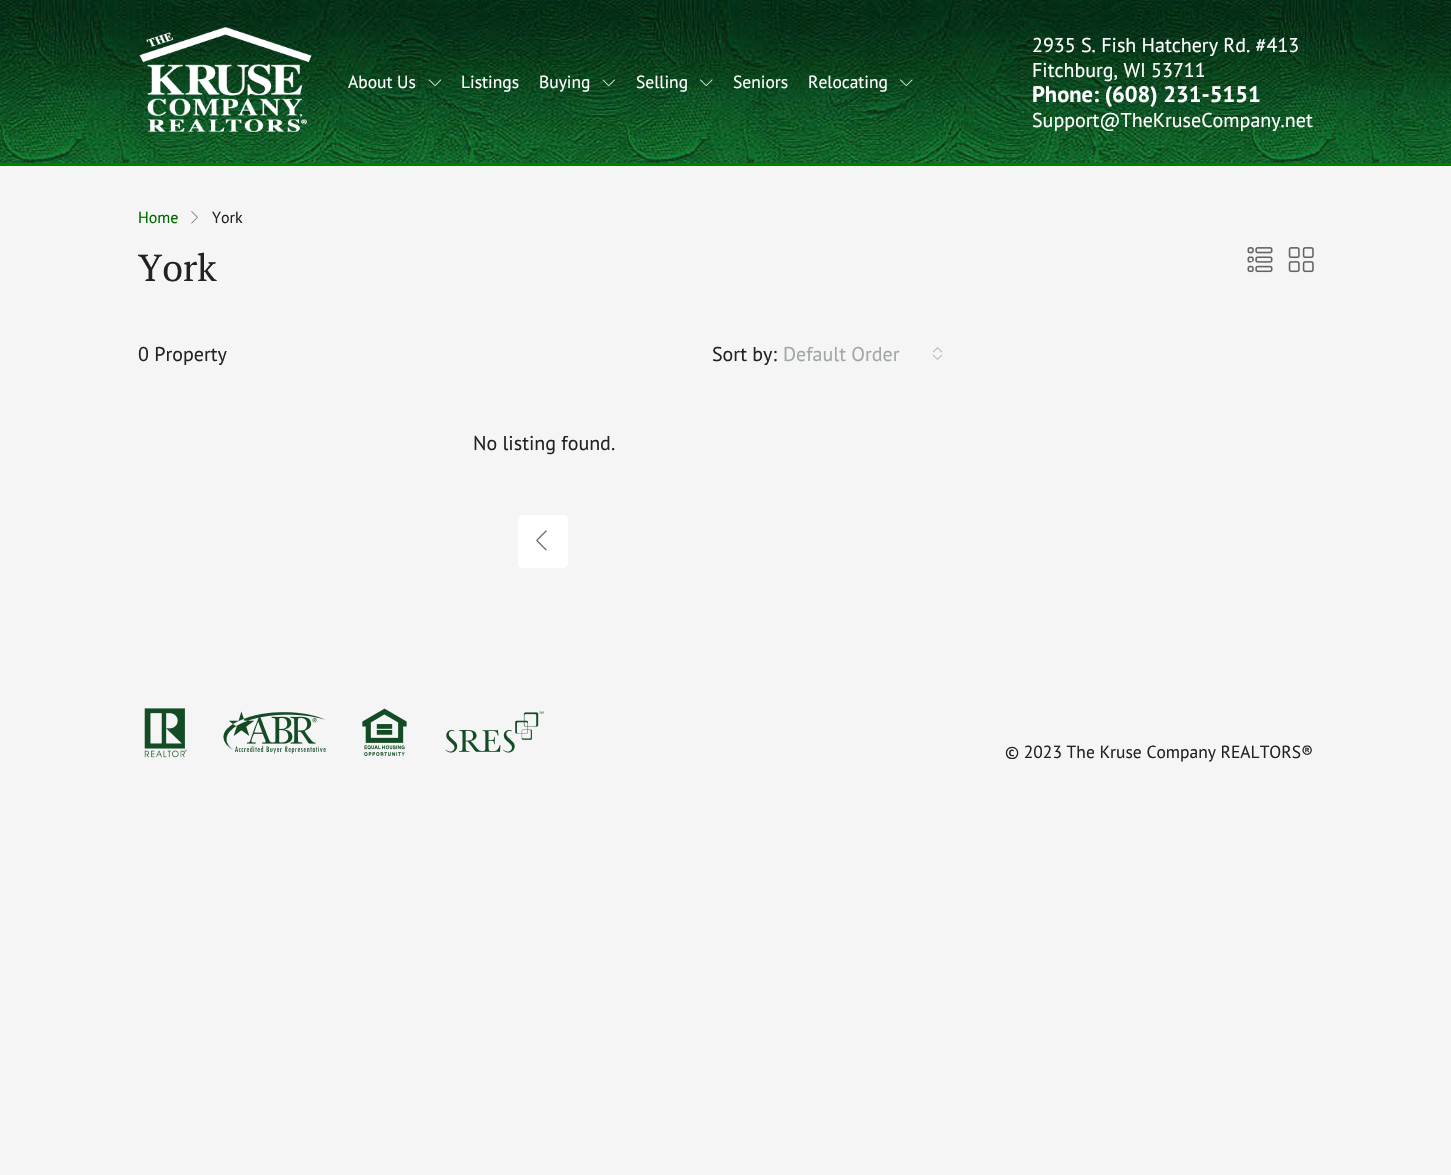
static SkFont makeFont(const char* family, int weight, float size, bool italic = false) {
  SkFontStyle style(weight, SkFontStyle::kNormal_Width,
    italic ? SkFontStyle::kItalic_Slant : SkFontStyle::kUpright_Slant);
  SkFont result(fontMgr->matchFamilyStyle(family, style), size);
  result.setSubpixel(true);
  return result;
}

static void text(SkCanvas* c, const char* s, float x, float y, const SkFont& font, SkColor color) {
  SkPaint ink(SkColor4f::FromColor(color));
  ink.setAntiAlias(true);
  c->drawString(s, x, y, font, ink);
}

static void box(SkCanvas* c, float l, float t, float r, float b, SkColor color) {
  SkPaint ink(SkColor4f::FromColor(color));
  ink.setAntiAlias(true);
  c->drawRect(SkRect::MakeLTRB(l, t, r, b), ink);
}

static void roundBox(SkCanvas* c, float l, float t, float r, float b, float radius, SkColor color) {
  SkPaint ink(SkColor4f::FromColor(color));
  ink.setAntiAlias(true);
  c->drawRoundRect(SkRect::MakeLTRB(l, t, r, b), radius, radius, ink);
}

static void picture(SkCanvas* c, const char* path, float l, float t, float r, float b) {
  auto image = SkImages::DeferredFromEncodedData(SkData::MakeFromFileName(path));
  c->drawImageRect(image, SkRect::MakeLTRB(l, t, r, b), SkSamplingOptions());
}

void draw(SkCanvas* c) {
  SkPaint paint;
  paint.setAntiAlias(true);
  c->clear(0xfff5f5f5);
  picture(c, "img_01.png", 0, 0, 1451, 163);
  box(c, 0, 163, 1451, 166, 0xff008000);
  picture(c, "img_02.png", 139, 27, 312, 132);
  SkFont face1 = makeFont("PT Sans", 400, 17.5f);
  text(c, "About Us", 348, 88, face1, 0xffffffff);
  picture(c, "img_03.png", 428, 79, 442, 86);
  text(c, "Listings", 461, 88, face1, 0xffffffff);
  text(c, "Buying", 539, 88, face1, 0xffffffff);
  picture(c, "img_04.png", 602, 79, 615, 86);
  text(c, "Selling", 636, 88, face1, 0xffffffff);
  picture(c, "img_05.png", 700, 79, 713, 86);
  text(c, "Seniors", 733, 88, face1, 0xffffffff);
  text(c, "Relocating", 808, 88, face1, 0xffffffff);
  picture(c, "img_06.png", 900, 79, 913, 86);
  SkFont face2 = makeFont("PT Sans", 400, 20);
  text(c, "2935 S. Fish Hatchery Rd. #413", 1032, 52, face2, 0xffffffff);
  text(c, "Fitchburg, WI 53711", 1032, 77, face2, 0xffffffff);
  SkFont face3 = makeFont("PT Sans", 700, 22.5f);
  text(c, "Phone: (608) 231-5151", 1032, 102, face3, 0xffffffff);
  text(c, "Support@TheKruseCompany.net", 1032, 127, face2, 0xffffffff);
  SkFont face4 = makeFont("PT Sans", 400, 16);
  text(c, "Home", 138, 223, face4, 0xff006600);
  picture(c, "img_07.png", 191, 211, 198, 224);
  text(c, "York", 212, 223, face4, 0xff222222);
  SkFont face5 = makeFont("PT Serif", 400, 37.5f);
  text(c, "York", 138, 281, face5, 0xff222222);
  picture(c, "img_08.png", 1247, 247, 1273, 273);
  picture(c, "img_09.png", 1288, 247, 1314, 273);
  text(c, "0 Property", 138, 361, face2, 0xff222222);
  text(c, "Sort by:", 712, 361, face2, 0xff222222);
  text(c, "Default Order", 783, 361, face2, 0xffa1a7a8);
  picture(c, "img_10.png", 932, 347, 943, 360);
  text(c, "No listing found.", 473, 450, face2, 0xff222222);
  roundBox(c, 518, 515, 568, 568, 5, 0xffffffff);
  picture(c, "img_11.png", 536, 530, 547, 551);
  picture(c, "img_12.png", 144, 708, 187, 758);
  picture(c, "img_13.png", 223, 711, 326, 754);
  picture(c, "img_14.png", 362, 708, 407, 756);
  picture(c, "img_15.png", 445, 711, 544, 753);
  text(c, "© 2023 The Kruse Company REALTORS®", 1005, 758, face1, 0xff222222);
}
